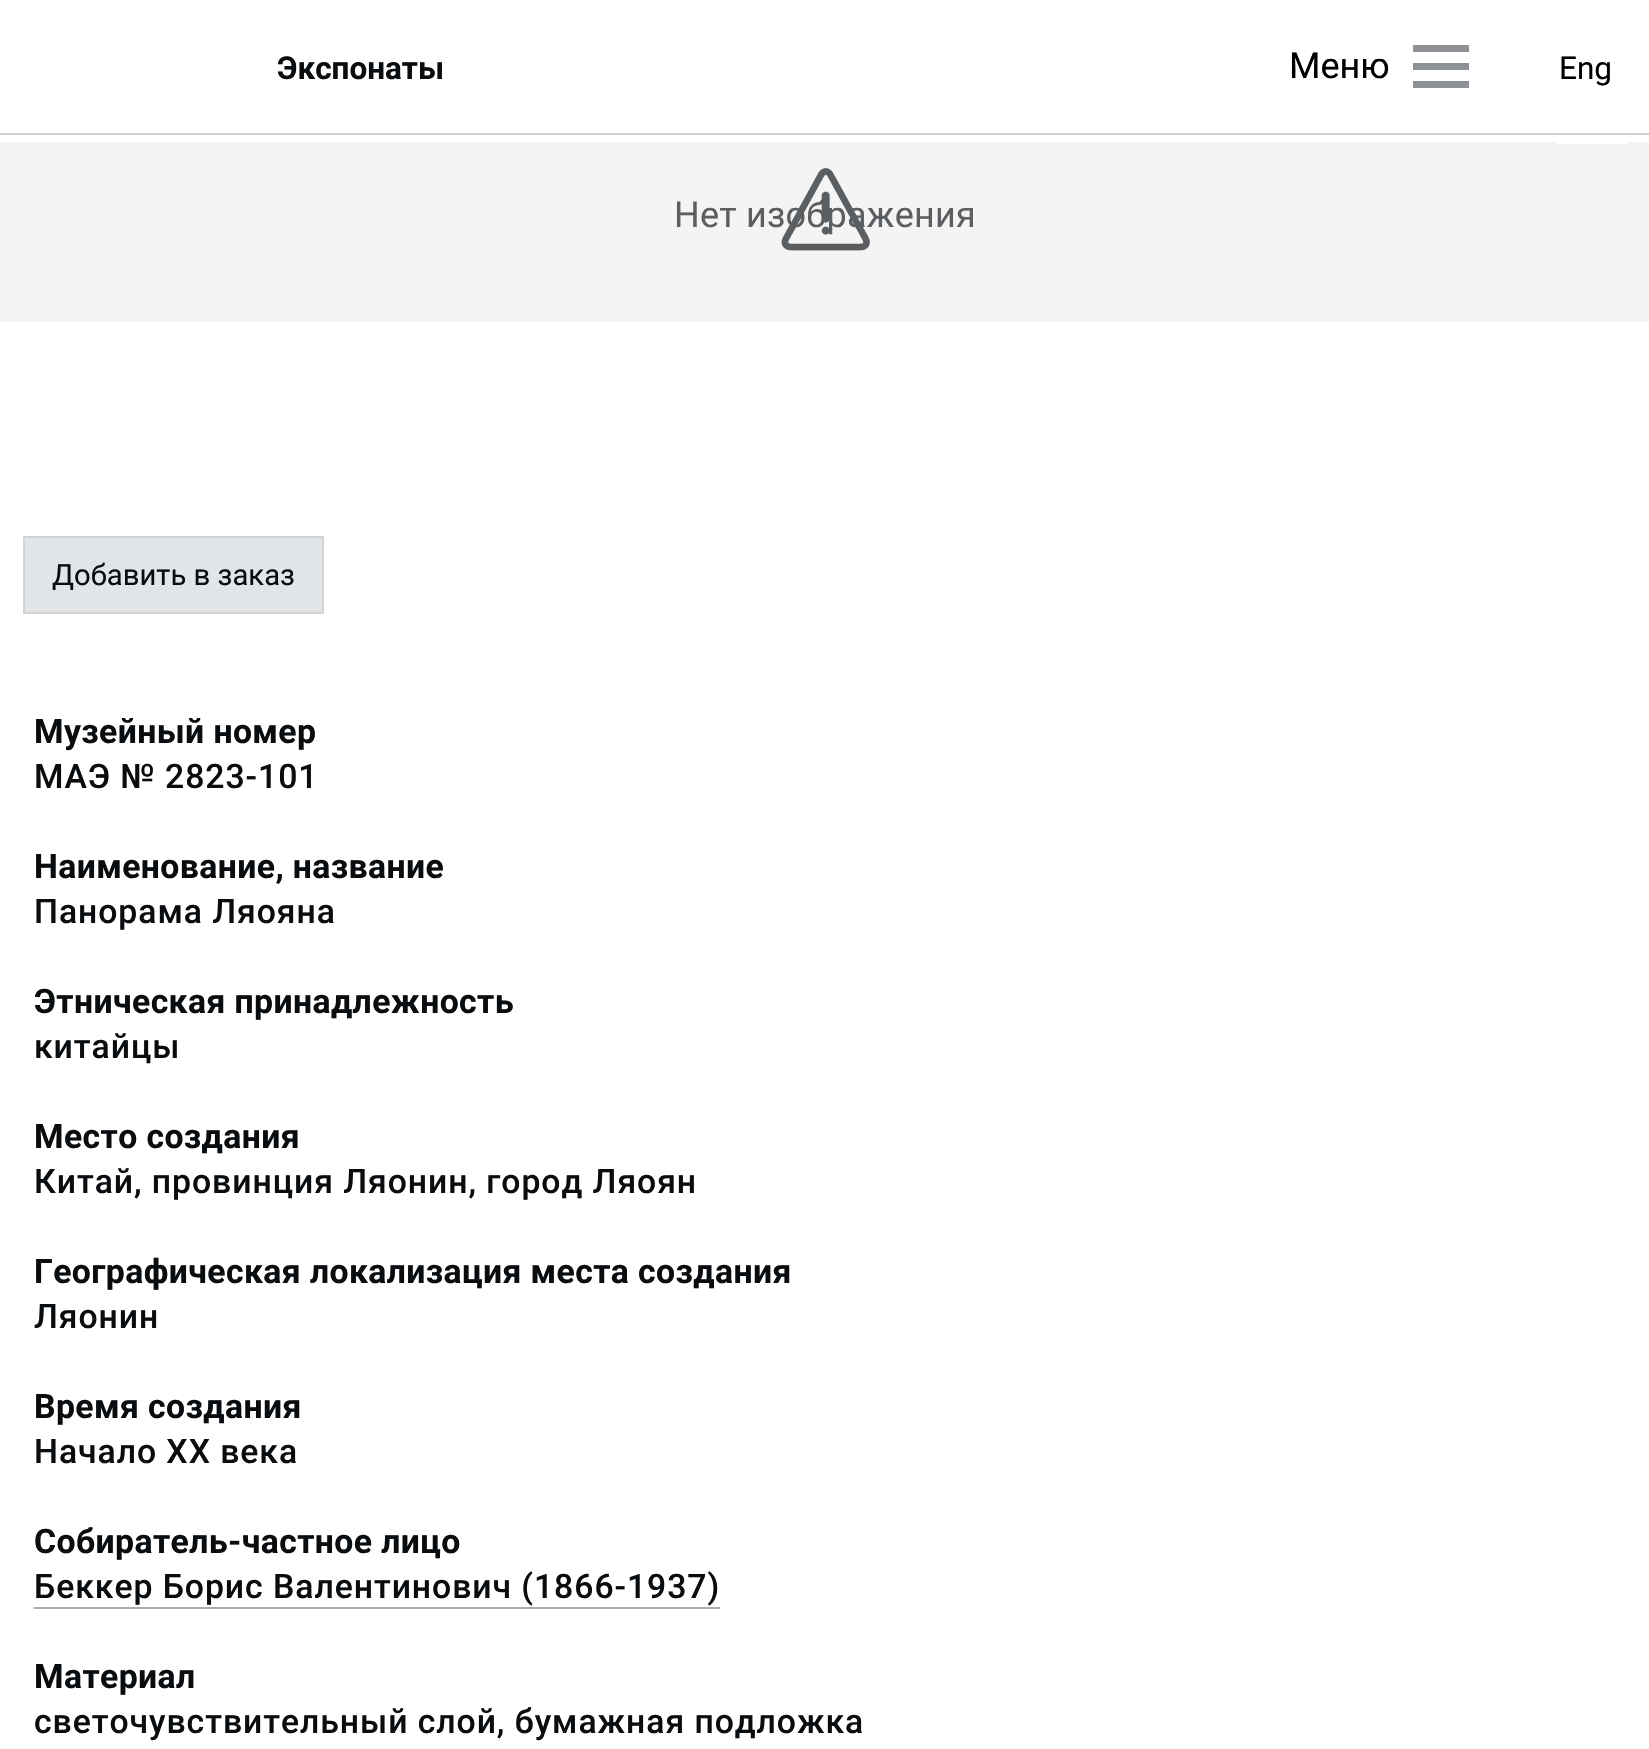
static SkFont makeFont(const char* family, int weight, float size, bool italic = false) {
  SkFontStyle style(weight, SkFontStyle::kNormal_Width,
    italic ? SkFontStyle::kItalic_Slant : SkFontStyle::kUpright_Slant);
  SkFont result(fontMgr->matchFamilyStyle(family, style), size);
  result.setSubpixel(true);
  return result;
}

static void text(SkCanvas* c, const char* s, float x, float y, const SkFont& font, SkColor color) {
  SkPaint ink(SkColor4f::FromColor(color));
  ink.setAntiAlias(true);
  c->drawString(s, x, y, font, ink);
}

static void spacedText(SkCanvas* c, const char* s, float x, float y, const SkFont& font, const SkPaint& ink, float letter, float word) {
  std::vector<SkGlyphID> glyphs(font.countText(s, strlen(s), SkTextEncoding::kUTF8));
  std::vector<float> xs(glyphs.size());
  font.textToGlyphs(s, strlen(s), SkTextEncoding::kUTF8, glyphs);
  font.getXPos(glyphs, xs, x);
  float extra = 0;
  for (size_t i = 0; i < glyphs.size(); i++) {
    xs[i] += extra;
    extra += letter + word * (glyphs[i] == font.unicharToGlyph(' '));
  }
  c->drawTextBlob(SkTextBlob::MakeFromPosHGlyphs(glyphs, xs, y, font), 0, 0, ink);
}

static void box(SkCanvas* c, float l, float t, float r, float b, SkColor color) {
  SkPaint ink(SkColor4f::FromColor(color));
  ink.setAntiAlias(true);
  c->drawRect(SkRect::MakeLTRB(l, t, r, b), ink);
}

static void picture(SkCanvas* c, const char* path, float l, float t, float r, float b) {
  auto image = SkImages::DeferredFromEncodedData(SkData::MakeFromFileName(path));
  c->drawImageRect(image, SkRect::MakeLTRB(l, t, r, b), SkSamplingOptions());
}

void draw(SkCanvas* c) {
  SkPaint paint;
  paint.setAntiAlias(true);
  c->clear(0xffffffff);
  box(c, 0, 133, 1649, 135, 0xffd3d3d3);
  SkFont face1 = makeFont("Roboto", 700, 31.5f);
  text(c, "Экспонаты", 277, 79, face1, 0xff0a0d10);
  box(c, 1413, 45, 1469, 52, 0xff8e9195);
  SkFont face2 = makeFont("Roboto", 400, 36);
  text(c, "Меню", 1289, 78, face2, 0xff000000);
  box(c, 1413, 63, 1469, 70, 0xff8e9195);
  box(c, 1413, 81, 1469, 88, 0xff8e9195);
  SkFont face3 = makeFont("Roboto", 400, 31.5f);
  text(c, "Eng", 1559, 79, face3, 0xff000000);
  box(c, 0, 142, 1649, 322, 0xfff4f4f5);
  paint.setColor(0xff5c5f62);
  spacedText(c, "Нет изображения", 674, 227, face2, paint, 0.25f, 0);
  picture(c, "img_01.png", 781, 168, 870, 251);
  paint.setColor(0xffe2e5e8);
  c->drawRect(SkRect::MakeLTRB(24, 537, 323, 613), paint);
  paint.setStyle(SkPaint::kStroke_Style);
  paint.setStrokeWidth(2);
  paint.setColor(0xffd3d3d3);
  c->drawRect(SkRect::MakeLTRB(24, 537, 323, 613), paint);
  SkFont face4 = makeFont("Roboto", 400, 29.25f);
  text(c, "Добавить в заказ", 52, 585, face4, 0xff0a0d10);
  box(c, 1557, 142, 1627, 144, 0xffffffff);
  SkFont face5 = makeFont("Roboto", 700, 33.75f);
  paint.setStyle(SkPaint::kFill_Style);
  paint.setColor(0xff0a0d10);
  spacedText(c, "Музейный номер", 34, 743, face5, paint, 0.4f, 0);
  SkFont face6 = makeFont("Roboto", 500, 33.75f);
  spacedText(c, "МАЭ № 2823-101", 34, 788, face6, paint, 0.95f, 0);
  spacedText(c, "Наименование, название", 34, 878, face5, paint, 0.4f, 0);
  spacedText(c, "Панорама Ляояна", 34, 923, face6, paint, 0.95f, 0);
  spacedText(c, "Этническая принадлежность", 34, 1013, face5, paint, 0.4f, 0);
  spacedText(c, "китайцы", 34, 1058, face6, paint, 0.95f, 0);
  spacedText(c, "Место создания", 34, 1148, face5, paint, 0.4f, 0);
  spacedText(c, "Китай, провинция Ляонин, город Ляоян", 34, 1193, face6, paint, 0.95f, 0);
  spacedText(c, "Географическая локализация места создания", 34, 1283, face5, paint, 0.4f, 0);
  spacedText(c, "Ляонин", 34, 1328, face6, paint, 0.95f, 0);
  spacedText(c, "Время создания", 34, 1418, face5, paint, 0.4f, 0);
  spacedText(c, "Начало XX века", 34, 1463, face6, paint, 0.95f, 0);
  spacedText(c, "Собиратель-частное лицо", 34, 1553, face5, paint, 0.4f, 0);
  spacedText(c, "Беккер Борис Валентинович (1866-1937)", 34, 1598, face6, paint, 0.95f, 0);
  box(c, 34, 1607, 720, 1609, 0xffacacac);
  spacedText(c, "Материал", 34, 1688, face5, paint, 0.4f, 0);
  spacedText(c, "светочувствительный слой, бумажная подложка", 34, 1733, face6, paint, 0.95f, 0);
}
